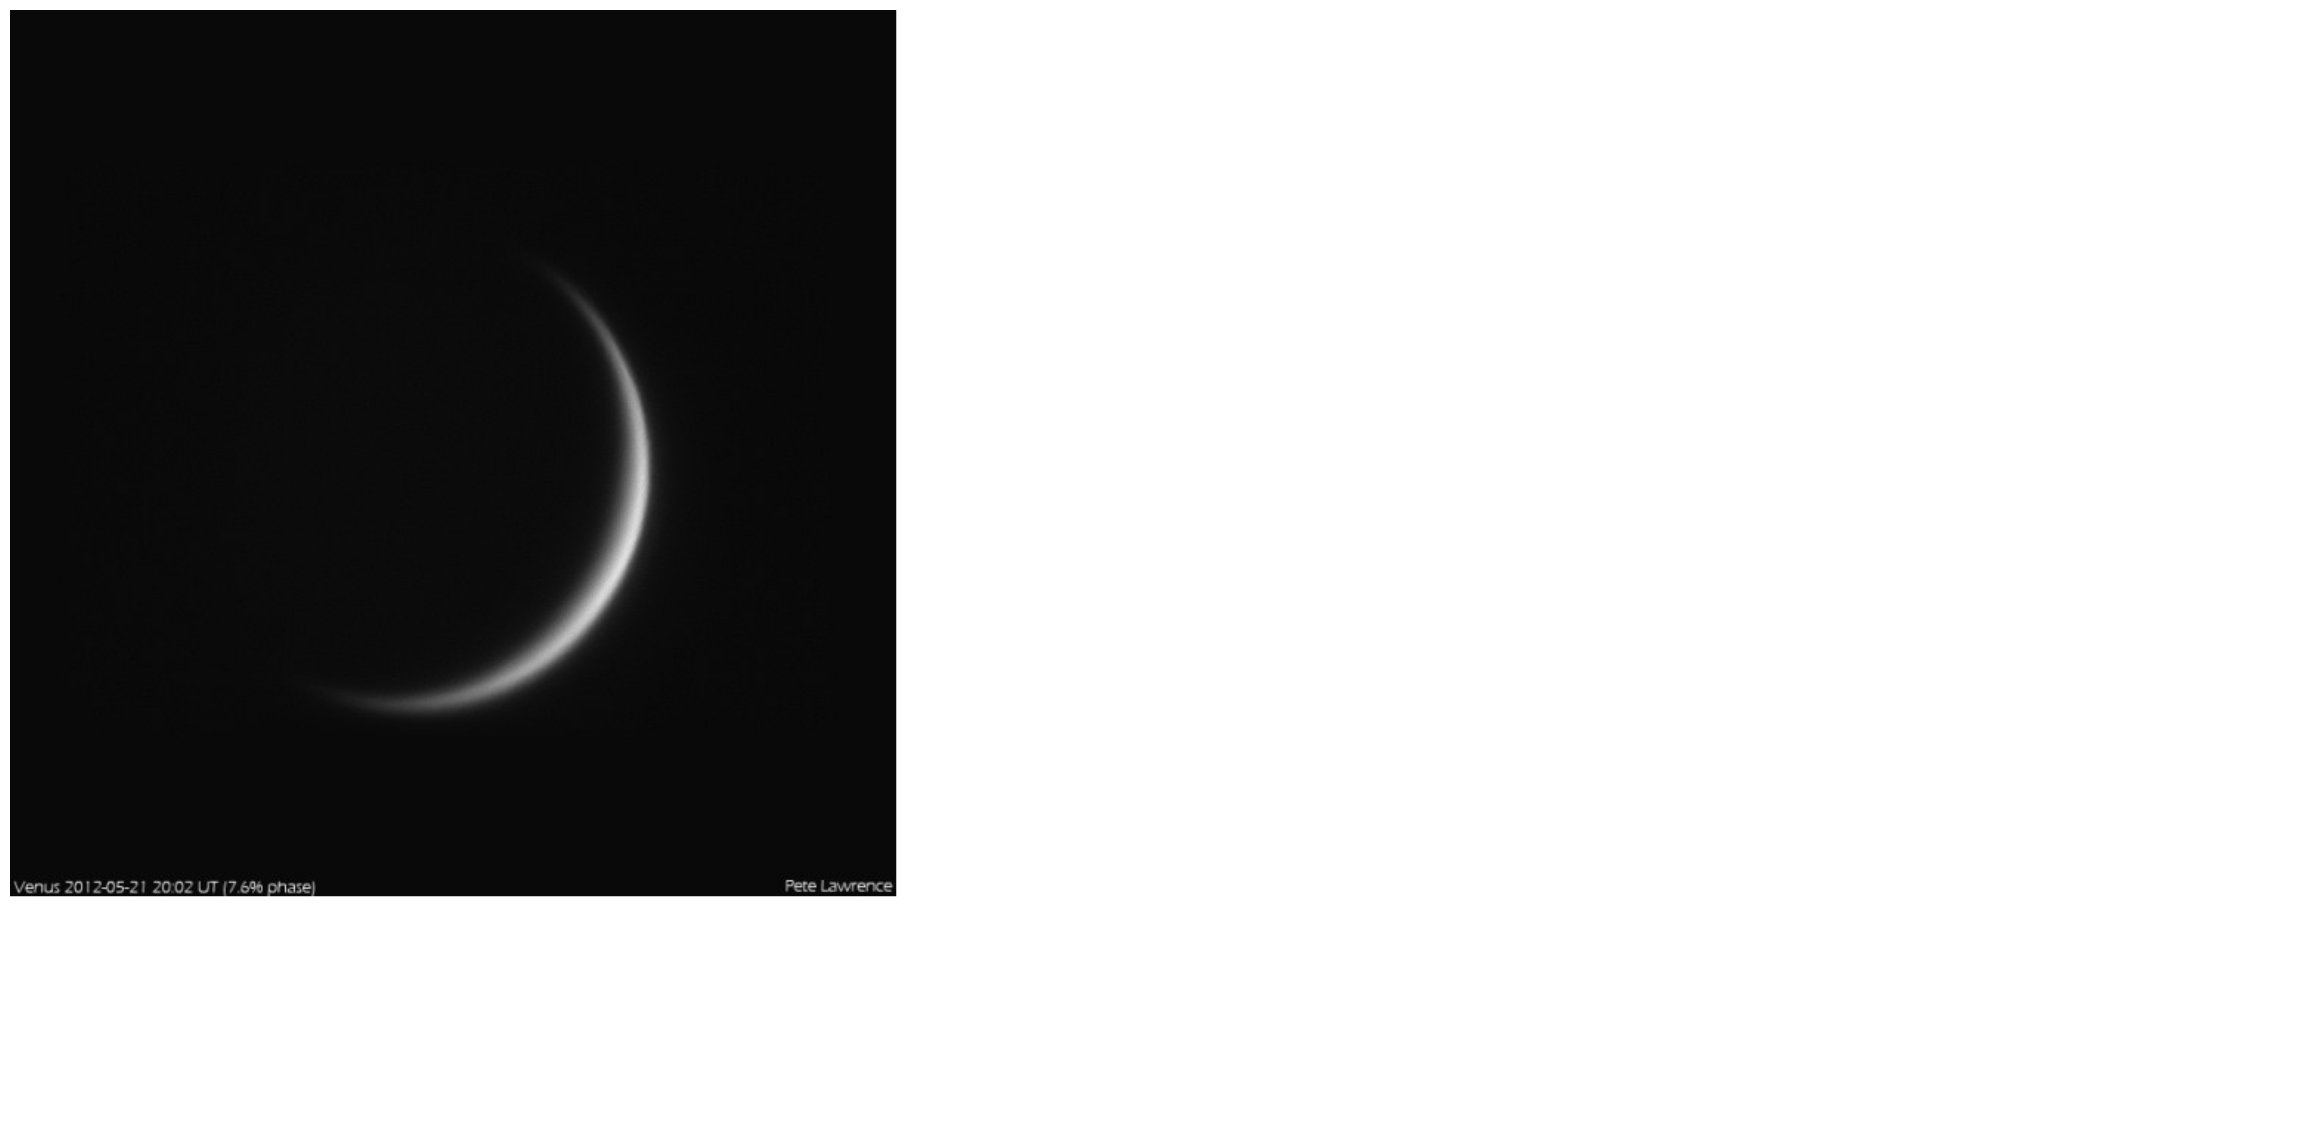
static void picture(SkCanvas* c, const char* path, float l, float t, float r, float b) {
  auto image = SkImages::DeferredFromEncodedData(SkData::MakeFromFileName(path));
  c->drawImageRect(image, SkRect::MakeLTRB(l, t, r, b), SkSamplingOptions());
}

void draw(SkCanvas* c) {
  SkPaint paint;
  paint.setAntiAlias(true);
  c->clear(0xffffffff);
  picture(c, "img_01.png", 10, 10, 897, 897);
}
